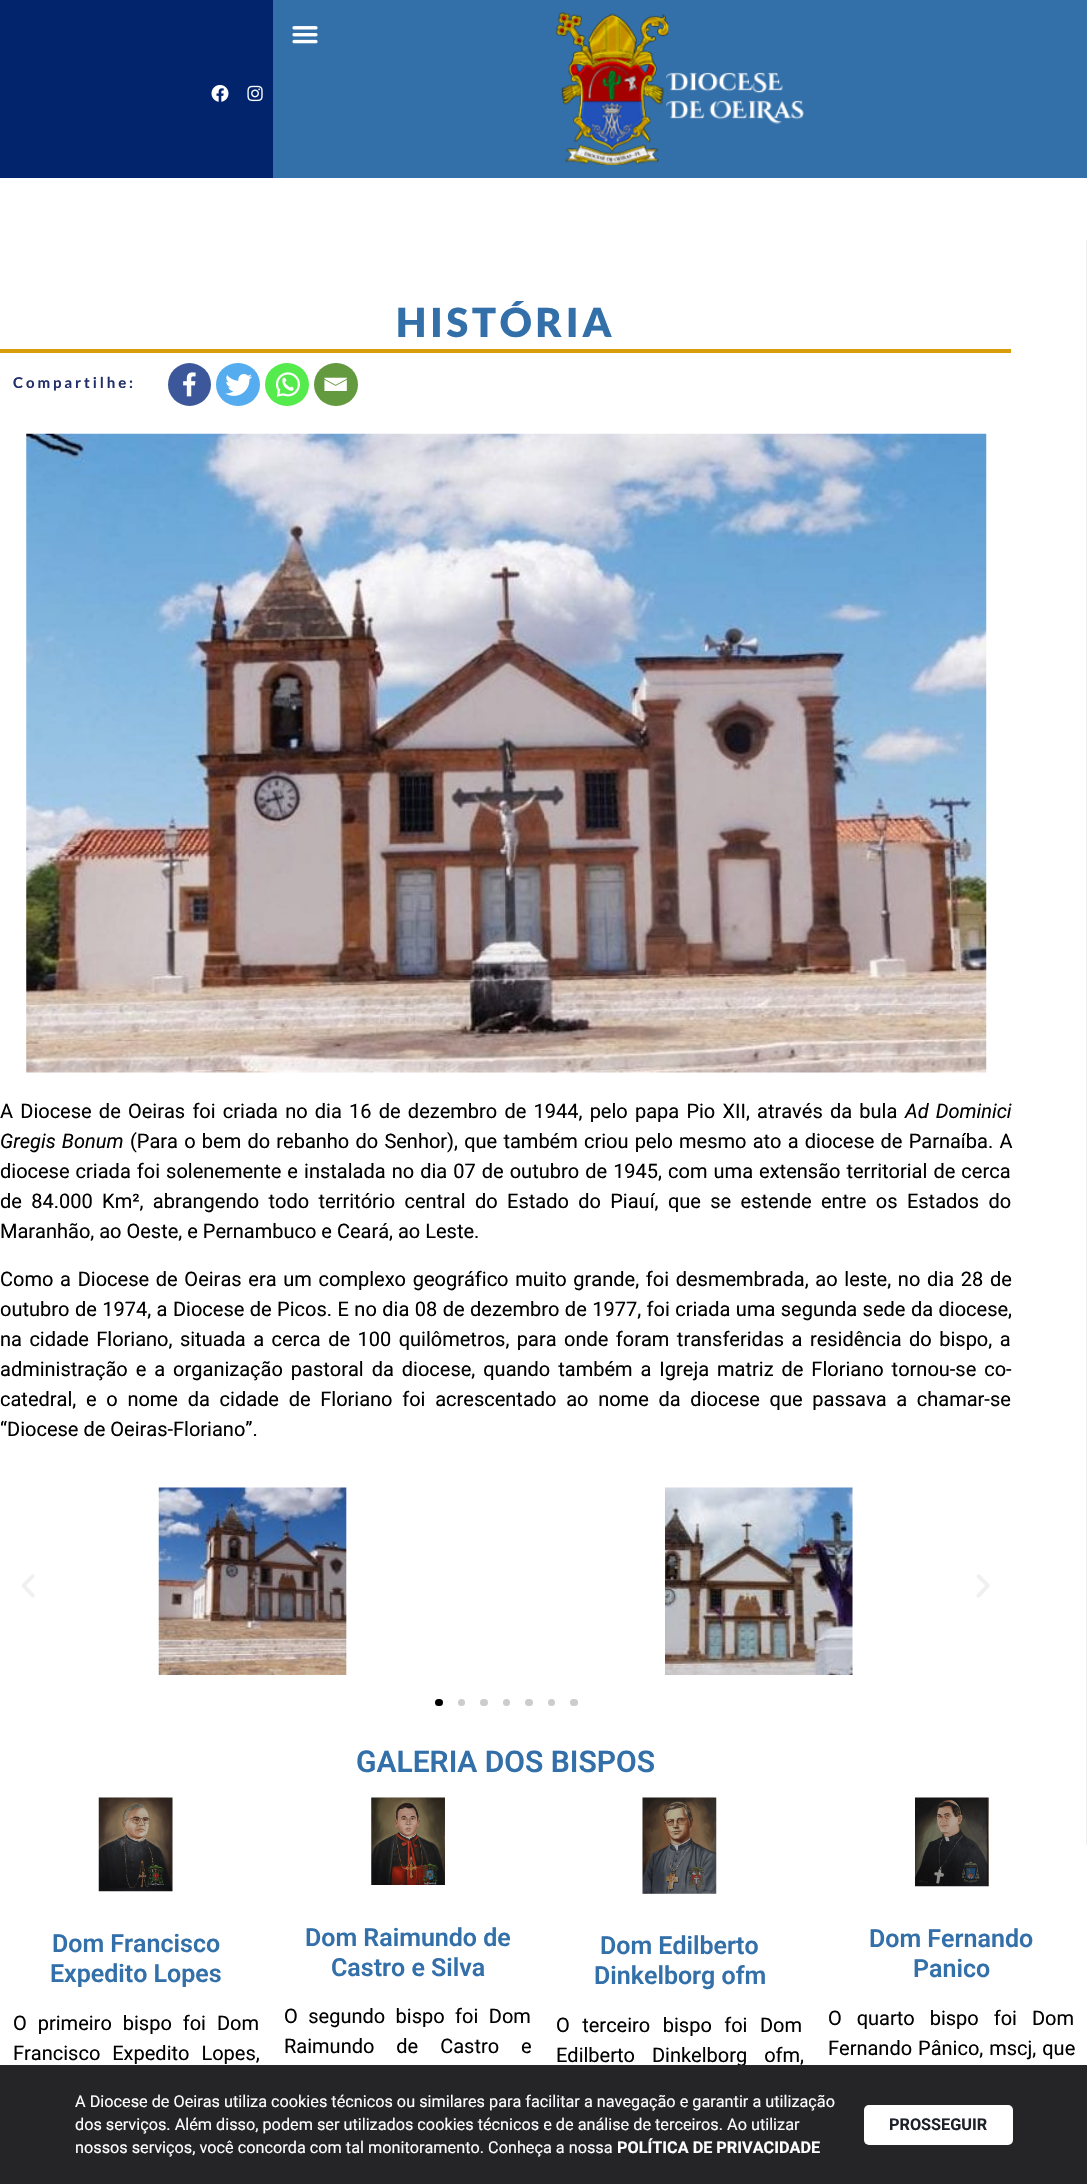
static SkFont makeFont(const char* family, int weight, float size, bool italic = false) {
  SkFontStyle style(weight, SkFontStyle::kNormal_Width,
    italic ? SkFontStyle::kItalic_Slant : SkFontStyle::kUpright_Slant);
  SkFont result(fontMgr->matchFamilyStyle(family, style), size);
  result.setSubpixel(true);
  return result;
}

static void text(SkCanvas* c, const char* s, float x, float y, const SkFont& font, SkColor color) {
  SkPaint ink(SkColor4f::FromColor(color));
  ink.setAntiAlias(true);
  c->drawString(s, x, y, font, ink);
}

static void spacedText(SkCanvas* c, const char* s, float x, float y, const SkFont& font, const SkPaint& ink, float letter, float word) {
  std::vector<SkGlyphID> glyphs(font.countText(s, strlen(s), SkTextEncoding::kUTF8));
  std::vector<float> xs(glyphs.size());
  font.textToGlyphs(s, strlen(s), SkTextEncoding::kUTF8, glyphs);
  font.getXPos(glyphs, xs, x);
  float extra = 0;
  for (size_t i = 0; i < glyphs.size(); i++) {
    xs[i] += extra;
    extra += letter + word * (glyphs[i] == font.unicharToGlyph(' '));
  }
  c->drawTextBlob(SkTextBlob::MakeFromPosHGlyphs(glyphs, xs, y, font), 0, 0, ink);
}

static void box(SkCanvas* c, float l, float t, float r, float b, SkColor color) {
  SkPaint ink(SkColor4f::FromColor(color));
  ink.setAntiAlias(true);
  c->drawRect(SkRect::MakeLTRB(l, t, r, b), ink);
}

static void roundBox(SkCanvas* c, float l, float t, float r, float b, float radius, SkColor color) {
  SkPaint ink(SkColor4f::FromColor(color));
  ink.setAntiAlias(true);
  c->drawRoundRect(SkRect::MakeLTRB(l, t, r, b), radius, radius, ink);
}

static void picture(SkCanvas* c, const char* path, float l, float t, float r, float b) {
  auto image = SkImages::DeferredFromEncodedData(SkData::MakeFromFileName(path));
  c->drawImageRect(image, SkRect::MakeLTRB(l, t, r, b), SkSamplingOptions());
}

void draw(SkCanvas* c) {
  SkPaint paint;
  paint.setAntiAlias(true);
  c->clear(0xffffffff);
  box(c, 273, 0, 1087, 178, 0xff3370a9);
  box(c, 0, 0, 273, 178, 0xff02246c);
  picture(c, "img_01.png", 211, 85, 229, 102);
  picture(c, "img_02.png", 247, 85, 263, 102);
  picture(c, "img_03.png", 292, 26, 318, 44);
  picture(c, "img_04.png", 556, 12, 804, 165);
  box(c, 1086, 240, 1087, 1845, 0xffededed);
  SkFont face1 = makeFont("Lato", 900, 40);
  paint.setColor(0xff3370a9);
  spacedText(c, "HISTÓRIA", 396, 337, face1, paint, 3.75f, 0);
  box(c, 0, 349, 1011, 353, 0xffd99d0c);
  SkFont face2 = makeFont("Lato", 700, 15);
  paint.setColor(0xff222f68);
  spacedText(c, "Compartilhe:", 13, 388, face2, paint, 2.9f, 0);
  paint.setColor(0xff3c589a);
  c->drawCircle(189.5f, 384.5f, 21.5f, paint);
  picture(c, "img_05.png", 183, 372, 196, 397);
  roundBox(c, 216, 363, 260, 406, 21.5f, 0xff55acee);
  picture(c, "img_06.png", 225, 374, 252, 396);
  roundBox(c, 265, 363, 309, 406, 21.5f, 0xff55eb4c);
  picture(c, "img_07.png", 275, 372, 300, 397);
  roundBox(c, 314, 363, 358, 406, 21.5f, 0xff649a3f);
  picture(c, "img_08.png", 324, 377, 347, 391);
  picture(c, "img_09.png", 26, 433, 987, 1073);
  SkFont face3 = makeFont("Roboto", 400, 20);
  paint.setColor(0xff000000);
  spacedText(c, "A Diocese de Oeiras foi criada no dia 16 de dezembro de 1944, pelo papa Pio XII, através da bula", 0, 1118, face3, paint, 0, 2.25f);
  SkFont face4 = makeFont("Roboto", 400, 20, true);
  spacedText(c, "Ad Dominici", 905, 1118, face4, paint, 0, 2.25f);
  spacedText(c, "Gregis Bonum", 0, 1148, face4, paint, 0, 1.25f);
  spacedText(c, "(Para o bem do rebanho do Senhor), que também criou pelo mesmo ato a diocese de Parnaíba. A", 130, 1148, face3, paint, 0, 1.25f);
  spacedText(c, "diocese criada foi solenemente e instalada no dia 07 de outubro de 1945, com uma extensão territorial de cerca", 0, 1178, face3, paint, 0, 1.1f);
  spacedText(c, "de 84.000 Km², abrangendo todo território central do Estado do Piauí, que se estende entre os Estados do", 0, 1208, face3, paint, 0, 4.4f);
  text(c, "Maranhão, ao Oeste, e Pernambuco e Ceará, ao Leste.", 0, 1238, face3, 0xff000000);
  spacedText(c, "Como a Diocese de Oeiras era um complexo geográfico muito grande, foi desmembrada, ao leste, no dia 28 de", 0, 1286, face3, paint, 0, 1.75f);
  spacedText(c, "outubro de 1974, a Diocese de Picos. E no dia 08 de dezembro de 1977, foi criada uma segunda sede da diocese,", 0, 1316, face3, paint, 0, 0.5f);
  spacedText(c, "na cidade Floriano, situada a cerca de 100 quilômetros, para onde foram transferidas a residência do bispo, a", 0, 1346, face3, paint, 0, 2.5f);
  spacedText(c, "administração e a organização pastoral da diocese, quando também a Igreja matriz de Floriano tornou-se co-", 0, 1376, face3, paint, 0, 3);
  spacedText(c, "catedral, e o nome da cidade de Floriano foi acrescentado ao nome da diocese que passava a chamar-se", 0, 1406, face3, paint, 0, 4.75f);
  text(c, "“Diocese de Oeiras-Floriano”.", 0, 1436, face3, 0xff000000);
  picture(c, "img_10.png", 21, 1574, 35, 1598);
  picture(c, "img_11.png", 158, 1487, 347, 1675);
  picture(c, "img_12.png", 665, 1487, 853, 1675);
  picture(c, "img_13.png", 976, 1574, 990, 1598);
  roundBox(c, 435, 1699, 443, 1706, 3.5f, 0xff000000);
  paint.setColor(0xffcccccc);
  c->drawCircle(461.5f, 1702.5f, 3.5f, paint);
  roundBox(c, 480, 1699, 488, 1706, 3.5f, 0xffcccccc);
  c->drawCircle(506.5f, 1702.5f, 3.5f, paint);
  roundBox(c, 525, 1699, 533, 1706, 3.5f, 0xffcccccc);
  c->drawCircle(551.5f, 1702.5f, 3.5f, paint);
  roundBox(c, 570, 1699, 578, 1706, 3.5f, 0xffcccccc);
  SkFont face5 = makeFont("Roboto", 600, 30);
  text(c, "GALERIA DOS BISPOS", 356, 1772, face5, 0xff3370a9);
  picture(c, "img_14.png", 98, 1797, 173, 1892);
  SkFont face6 = makeFont("Roboto", 600, 25);
  text(c, "Dom Francisco", 52, 1952, face6, 0xff3370a9);
  text(c, "Expedito Lopes", 50, 1982, face6, 0xff3370a9);
  paint.setColor(0xff000000);
  spacedText(c, "O primeiro bispo foi Dom", 13, 2030, face3, paint, 0, 6);
  spacedText(c, "Francisco Expedito Lopes,", 13, 2060, face3, paint, 0, 7);
  picture(c, "img_15.png", 371, 1797, 445, 1885);
  text(c, "Dom Raimundo de", 305, 1946, face6, 0xff3370a9);
  text(c, "Castro e Silva", 331, 1976, face6, 0xff3370a9);
  spacedText(c, "O segundo bispo foi Dom", 284, 2023, face3, paint, 0, 5.5f);
  spacedText(c, "Raimundo de Castro e", 284, 2053, face3, paint, 0, 17);
  picture(c, "img_16.png", 642, 1797, 717, 1894);
  text(c, "Dom Edilberto", 600, 1954, face6, 0xff3370a9);
  text(c, "Dinkelborg ofm", 594, 1984, face6, 0xff3370a9);
  spacedText(c, "O terceiro bispo foi Dom", 556, 2032, face3, paint, 0, 7.5f);
  spacedText(c, "Edilberto Dinkelborg ofm,", 556, 2062, face3, paint, 0, 12);
  picture(c, "img_17.png", 915, 1797, 989, 1887);
  text(c, "Dom Fernando", 869, 1947, face6, 0xff3370a9);
  text(c, "Panico", 913, 1977, face6, 0xff3370a9);
  spacedText(c, "O quarto bispo foi Dom", 828, 2025, face3, paint, 0, 10);
  spacedText(c, "Fernando Pânico, mscj, que", 828, 2055, face3, paint, 0, 1);
  box(c, 0, 2065, 1087, 2184, 0xff252528);
  SkFont face7 = makeFont("Roboto", 400, 16.25f);
  text(c, "A Diocese de Oeiras utiliza cookies técnicos ou similares para facilitar a navegação e garantir a utilização", 75, 2107, face7, 0xffffffff);
  text(c, "dos serviços. Além disso, podem ser utilizados cookies técnicos e de análise de terceiros. Ao utilizar", 75, 2130, face7, 0xffffffff);
  text(c, "nossos serviços, você concorda com tal monitoramento. Conheça a nossa", 75, 2153, face7, 0xffffffff);
  SkFont face8 = makeFont("Roboto", 700, 16.25f);
  text(c, "POLÍTICA DE PRIVACIDADE", 617, 2153, face8, 0xffffffff);
  roundBox(c, 864, 2105, 1013, 2145, 5, 0xffffffff);
  text(c, "PROSSEGUIR", 889, 2130, face8, 0xff1d2129);
}
